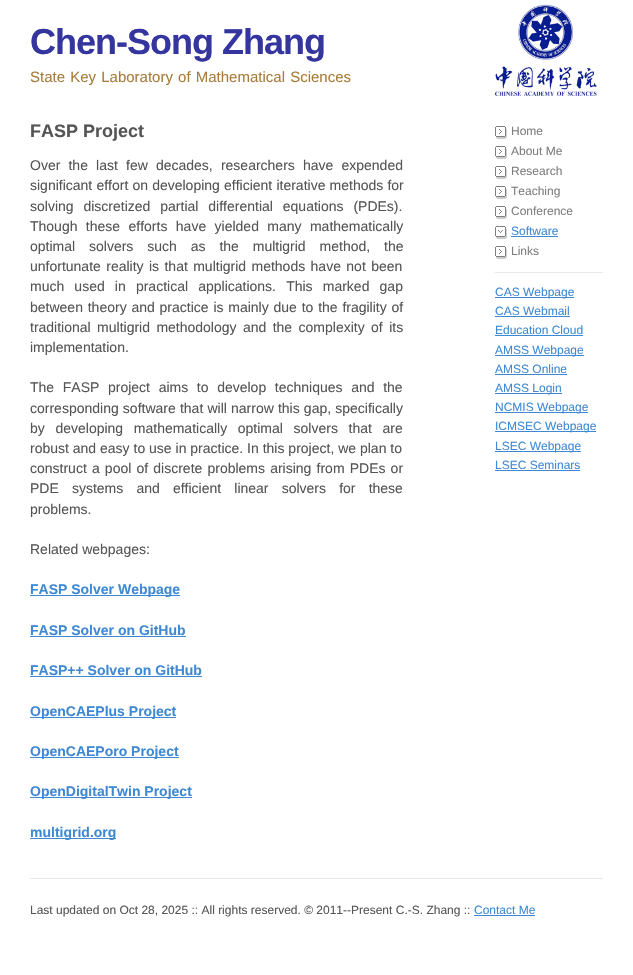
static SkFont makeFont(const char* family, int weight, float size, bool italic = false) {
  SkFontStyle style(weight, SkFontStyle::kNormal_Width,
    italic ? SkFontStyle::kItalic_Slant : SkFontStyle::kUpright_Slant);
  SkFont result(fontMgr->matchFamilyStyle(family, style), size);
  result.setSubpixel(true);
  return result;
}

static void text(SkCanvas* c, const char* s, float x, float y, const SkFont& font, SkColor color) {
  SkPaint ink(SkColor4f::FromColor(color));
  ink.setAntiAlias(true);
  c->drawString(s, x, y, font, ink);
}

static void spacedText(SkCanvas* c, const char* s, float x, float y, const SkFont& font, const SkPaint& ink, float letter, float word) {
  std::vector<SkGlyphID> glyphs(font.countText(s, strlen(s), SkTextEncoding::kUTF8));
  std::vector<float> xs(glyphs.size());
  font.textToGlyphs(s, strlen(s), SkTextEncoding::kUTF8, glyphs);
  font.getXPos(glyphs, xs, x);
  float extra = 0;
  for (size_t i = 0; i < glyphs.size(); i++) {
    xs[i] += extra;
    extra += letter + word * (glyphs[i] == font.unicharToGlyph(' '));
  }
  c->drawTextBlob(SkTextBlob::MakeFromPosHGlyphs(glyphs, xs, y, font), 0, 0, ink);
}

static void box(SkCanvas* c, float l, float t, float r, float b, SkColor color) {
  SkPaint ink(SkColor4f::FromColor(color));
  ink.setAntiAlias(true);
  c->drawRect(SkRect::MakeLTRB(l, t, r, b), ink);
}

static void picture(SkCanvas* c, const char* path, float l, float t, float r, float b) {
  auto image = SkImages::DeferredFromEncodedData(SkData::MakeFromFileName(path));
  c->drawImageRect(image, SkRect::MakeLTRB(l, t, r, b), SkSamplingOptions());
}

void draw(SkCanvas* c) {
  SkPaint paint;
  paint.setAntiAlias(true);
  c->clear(0xffffffff);
  SkFont face1 = makeFont("Liberation Sans", 700, 36);
  paint.setColor(0xff34359e);
  spacedText(c, "Chen-Song Zhang", 30, 54, face1, paint, -1, 0);
  picture(c, "img_01.png", 495, 4, 597, 96);
  SkFont face2 = makeFont("Liberation Sans", 400, 15);
  paint.setColor(0xffa87c3a);
  spacedText(c, "State Key Laboratory of Mathematical Sciences", 30, 82, face2, paint, 0, 1);
  SkFont face3 = makeFont("Liberation Sans", 700, 18);
  text(c, "FASP Project", 30, 137, face3, 0xff555555);
  SkFont face4 = makeFont("Liberation Sans", 400, 14);
  paint.setColor(0xff555555);
  spacedText(c, "Over the last few decades, researchers have expended", 30, 170, face4, paint, 0, 4.25f);
  spacedText(c, "significant effort on developing efficient iterative methods for", 30, 190, face4, paint, 0, 0.25f);
  spacedText(c, "solving discretized partial differential equations (PDEs).", 30, 211, face4, paint, 0, 6);
  spacedText(c, "Though these efforts have yielded many mathematically", 30, 231, face4, paint, 0, 4.5f);
  spacedText(c, "optimal solvers such as the multigrid method, the", 30, 251, face4, paint, 0, 10);
  spacedText(c, "unfortunate reality is that multigrid methods have not been", 30, 271, face4, paint, 0, 1.5f);
  spacedText(c, "much used in practical applications. This marked gap", 30, 291, face4, paint, 0, 6.25f);
  spacedText(c, "between theory and practice is mainly due to the fragility of", 30, 312, face4, paint, 0, 0.9f);
  spacedText(c, "traditional multigrid methodology and the complexity of its", 30, 332, face4, paint, 0, 2.5f);
  text(c, "implementation.", 30, 352, face4, 0xff555555);
  spacedText(c, "The FASP project aims to develop techniques and the", 30, 392, face4, paint, 0, 4.75f);
  spacedText(c, "corresponding software that will narrow this gap, specifically", 30, 413, face4, paint, 0, 0.25f);
  spacedText(c, "by developing mathematically optimal solvers that are", 30, 433, face4, paint, 0, 6.75f);
  text(c, "robust and easy to use in practice. In this project, we plan to", 30, 453, face4, 0xff555555);
  spacedText(c, "construct a pool of discrete problems arising from PDEs or", 30, 473, face4, paint, 0, 1.25f);
  spacedText(c, "PDE systems and efficient linear solvers for these", 30, 493, face4, paint, 0, 9.25f);
  text(c, "problems.", 30, 514, face4, 0xff555555);
  text(c, "Related webpages:", 30, 554, face4, 0xff555555);
  box(c, 30, 595, 180, 596, 0xff3f89d4);
  SkFont face5 = makeFont("Liberation Sans", 700, 14);
  text(c, "FASP Solver Webpage", 30, 594, face5, 0xff3f89d4);
  text(c, "FASP Solver on GitHub", 30, 635, face5, 0xff3f89d4);
  box(c, 30, 636, 186, 637, 0xff3f89d4);
  text(c, "FASP++ Solver on GitHub", 30, 675, face5, 0xff3f89d4);
  box(c, 30, 676, 202, 677, 0xff3f89d4);
  box(c, 30, 717, 176, 718, 0xff3f89d4);
  text(c, "OpenCAEPlus Project", 30, 716, face5, 0xff3f89d4);
  box(c, 30, 757, 179, 758, 0xff3f89d4);
  text(c, "OpenCAEPoro Project", 30, 756, face5, 0xff3f89d4);
  box(c, 30, 797, 192, 798, 0xff3f89d4);
  text(c, "OpenDigitalTwin Project", 30, 796, face5, 0xff3f89d4);
  box(c, 30, 838, 116, 839, 0xff3f89d4);
  text(c, "multigrid.org", 30, 837, face5, 0xff3f89d4);
  box(c, 495, 272, 603, 273, 0xffeaeaea);
  picture(c, "img_02.png", 495, 126, 507, 139);
  SkFont face6 = makeFont("Liberation Sans", 400, 12);
  text(c, "Home", 511, 135, face6, 0xff7e7e7e);
  picture(c, "img_02.png", 495, 146, 507, 159);
  text(c, "About Me", 511, 155, face6, 0xff7e7e7e);
  picture(c, "img_02.png", 495, 166, 507, 179);
  text(c, "Research", 511, 175, face6, 0xff7e7e7e);
  picture(c, "img_02.png", 495, 186, 507, 199);
  text(c, "Teaching", 511, 195, face6, 0xff7e7e7e);
  picture(c, "img_02.png", 495, 206, 507, 219);
  text(c, "Conference", 511, 215, face6, 0xff7e7e7e);
  picture(c, "img_03.png", 495, 226, 507, 239);
  text(c, "Software", 511, 235, face6, 0xff3f89d4);
  box(c, 511, 236, 558, 237, 0xff3f89d4);
  picture(c, "img_02.png", 495, 246, 507, 259);
  text(c, "Links", 511, 255, face6, 0xff7e7e7e);
  box(c, 495, 297, 574, 298, 0xff3f89d4);
  text(c, "CAS Webpage", 495, 296, face6, 0xff3f89d4);
  text(c, "CAS Webmail", 495, 315, face6, 0xff3f89d4);
  box(c, 495, 316, 570, 317, 0xff3f89d4);
  text(c, "Education Cloud", 495, 334, face6, 0xff3f89d4);
  box(c, 495, 335, 583, 336, 0xff3f89d4);
  box(c, 495, 355, 584, 356, 0xff3f89d4);
  text(c, "AMSS Webpage", 495, 354, face6, 0xff3f89d4);
  text(c, "AMSS Online", 495, 373, face6, 0xff3f89d4);
  box(c, 495, 374, 567, 375, 0xff3f89d4);
  box(c, 495, 393, 562, 394, 0xff3f89d4);
  text(c, "AMSS Login", 495, 392, face6, 0xff3f89d4);
  box(c, 495, 412, 588, 413, 0xff3f89d4);
  text(c, "NCMIS Webpage", 495, 411, face6, 0xff3f89d4);
  box(c, 495, 431, 596, 432, 0xff3f89d4);
  text(c, "ICMSEC Webpage", 495, 430, face6, 0xff3f89d4);
  box(c, 495, 451, 581, 452, 0xff3f89d4);
  text(c, "LSEC Webpage", 495, 450, face6, 0xff3f89d4);
  text(c, "LSEC Seminars", 495, 469, face6, 0xff3f89d4);
  box(c, 495, 470, 580, 471, 0xff3f89d4);
  box(c, 30, 878, 603, 879, 0xffeaeaea);
  text(c, "Last updated on Oct 28, 2025 :: All rights reserved. © 2011--Present C.-S. Zhang ::", 30, 914, face6, 0xff555555);
  text(c, "Contact Me", 474, 914, face6, 0xff3f89d4);
  box(c, 474, 915, 535, 916, 0xff3f89d4);
}
